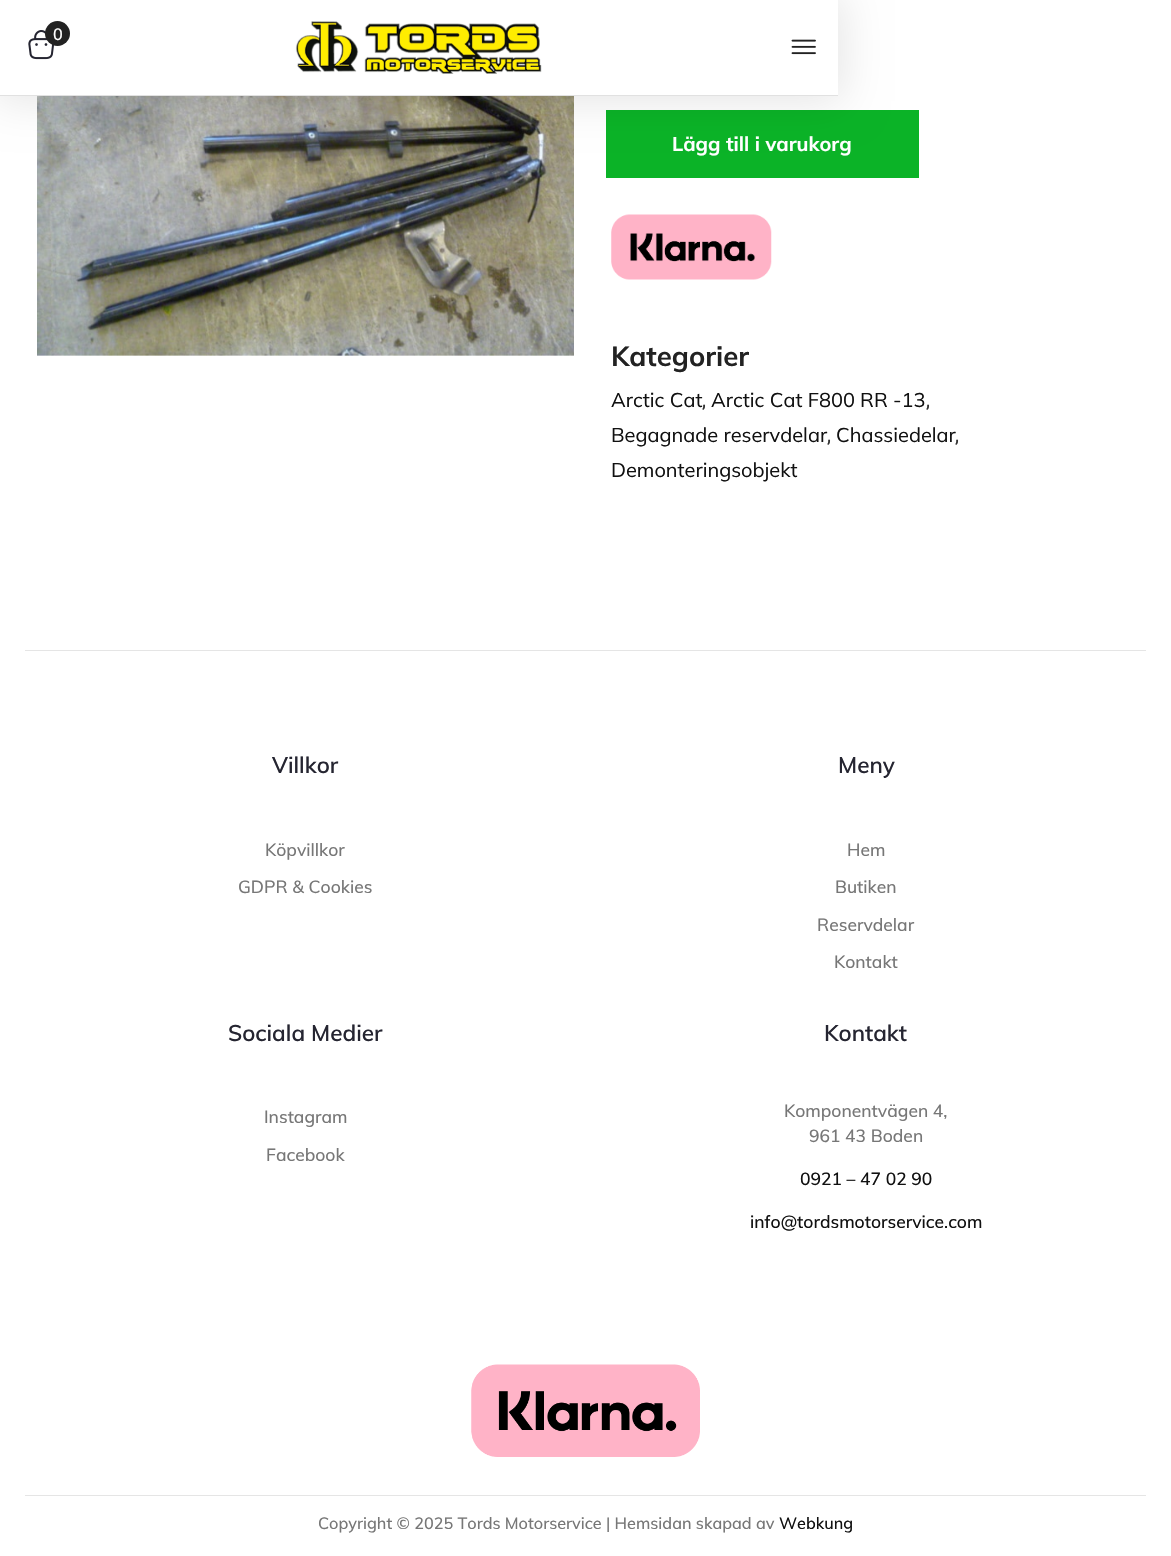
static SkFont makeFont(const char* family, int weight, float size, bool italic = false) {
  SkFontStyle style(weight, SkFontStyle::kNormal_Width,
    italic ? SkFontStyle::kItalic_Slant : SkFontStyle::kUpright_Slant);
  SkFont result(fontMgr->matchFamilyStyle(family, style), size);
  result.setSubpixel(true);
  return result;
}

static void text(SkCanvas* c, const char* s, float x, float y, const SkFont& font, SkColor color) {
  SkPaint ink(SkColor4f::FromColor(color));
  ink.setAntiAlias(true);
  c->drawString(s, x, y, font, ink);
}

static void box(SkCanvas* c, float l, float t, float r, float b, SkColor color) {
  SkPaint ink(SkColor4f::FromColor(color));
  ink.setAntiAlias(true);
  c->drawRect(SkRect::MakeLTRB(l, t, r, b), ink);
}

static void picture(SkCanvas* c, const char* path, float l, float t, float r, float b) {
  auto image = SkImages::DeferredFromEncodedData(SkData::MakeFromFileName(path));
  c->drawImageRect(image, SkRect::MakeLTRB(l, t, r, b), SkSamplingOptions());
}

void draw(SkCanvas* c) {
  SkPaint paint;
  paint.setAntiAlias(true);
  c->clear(0xffffffff);
  picture(c, "img_04.png", 37, 96, 574, 356);
  box(c, 606, 110, 919, 178, 0xff0bb327);
  paint.setColor(0x1a000000);
  paint.setMaskFilter(SkMaskFilter::MakeBlur(kNormal_SkBlurStyle, 22));
  c->drawRect(SkRect::MakeLTRB(-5, -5, 843, 101), paint);
  paint.setMaskFilter(nullptr);
  box(c, 0, 0, 838, 95, 0xffffffff);
  box(c, 0, 95, 838, 96, 0xffe1e1e1);
  picture(c, "img_01.png", 28, 30, 54, 60);
  paint.setColor(0xff222222);
  c->drawCircle(57.5f, 33.5f, 12.5f, paint);
  SkFont face1 = makeFont("Muli", 500, 16.25f);
  text(c, "0", 53, 40, face1, 0xffffffff);
  picture(c, "img_02.png", 295, 21, 542, 74);
  picture(c, "img_03.png", 791, 39, 816, 55);
  SkFont face2 = makeFont("Mulish", 700, 20);
  text(c, "Lägg till i varukorg", 672, 151, face2, 0xffffffff);
  picture(c, "img_05.png", 611, 214, 772, 280);
  SkFont face3 = makeFont("Mulish", 700, 27.5f);
  text(c, "Kategorier", 611, 366, face3, 0xff222222);
  SkFont face4 = makeFont("Mulish", 400, 20);
  text(c, "Arctic Cat", 611, 407, face4, 0xff111111);
  SkFont face5 = makeFont("Roboto", 400, 20);
  text(c, ",", 702, 407, face5, 0xff333333);
  text(c, "Arctic Cat F800 RR -13", 711, 407, face4, 0xff111111);
  text(c, ",", 926, 407, face5, 0xff333333);
  text(c, "Begagnade reservdelar", 611, 442, face4, 0xff111111);
  text(c, ",", 827, 442, face5, 0xff333333);
  text(c, "Chassiedelar", 836, 442, face4, 0xff111111);
  text(c, ",", 955, 442, face5, 0xff333333);
  text(c, "Demonteringsobjekt", 611, 477, face4, 0xff111111);
  box(c, 25, 650, 1146, 651, 0xffe5e5e5);
  SkFont face6 = makeFont("Muli", 600, 22.5f);
  text(c, "Villkor", 272, 773, face6, 0xff252531);
  SkFont face7 = makeFont("Muli", 500, 17.5f);
  text(c, "Köpvillkor", 265, 856, face7, 0xff777777);
  text(c, "GDPR & Cookies", 238, 893, face7, 0xff777777);
  text(c, "Meny", 838, 773, face6, 0xff252531);
  text(c, "Hem", 847, 856, face7, 0xff777777);
  text(c, "Butiken", 835, 893, face7, 0xff777777);
  text(c, "Reservdelar", 817, 931, face7, 0xff777777);
  text(c, "Kontakt", 834, 968, face7, 0xff777777);
  text(c, "Sociala Medier", 228, 1041, face6, 0xff252531);
  text(c, "Instagram", 264, 1123, face7, 0xff777777);
  text(c, "Facebook", 266, 1161, face7, 0xff777777);
  text(c, "Kontakt", 824, 1041, face6, 0xff252531);
  text(c, "Komponentvägen 4,", 784, 1117, face7, 0xff777777);
  text(c, "961 43 Boden", 809, 1142, face7, 0xff777777);
  text(c, "0921 – 47 02 90", 800, 1185, face7, 0xff111111);
  text(c, "info@tordsmotorservice.com", 750, 1228, face7, 0xff111111);
  picture(c, "img_06.png", 471, 1364, 700, 1457);
  box(c, 25, 1495, 1146, 1496, 0xffe5e5e5);
  text(c, "Copyright © 2025 Tords Motorservice | Hemsidan skapad av", 318, 1529, face1, 0xff777777);
  text(c, "Webkung", 779, 1529, face1, 0xff111111);
}
